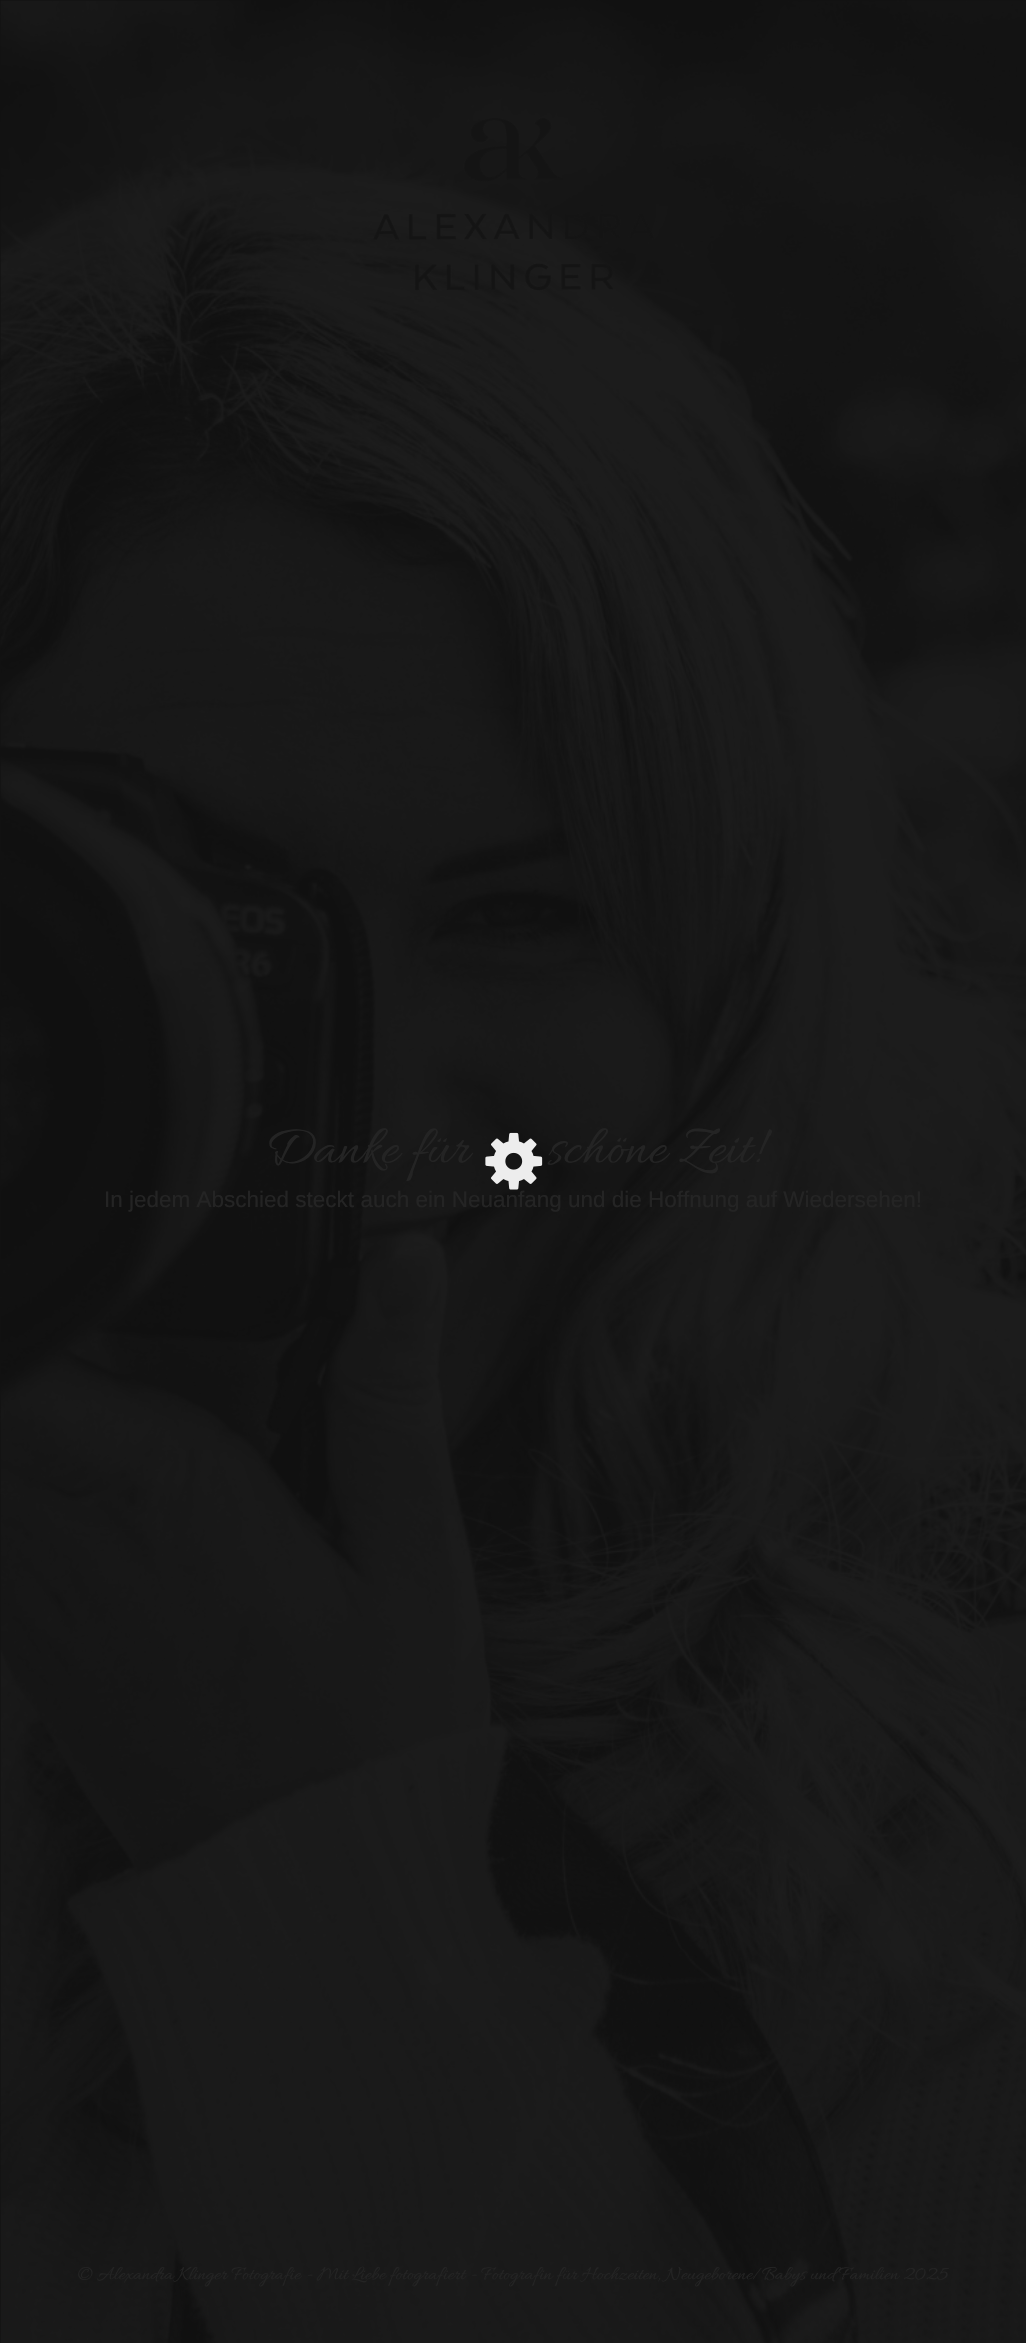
static SkFont makeFont(const char* family, int weight, float size, bool italic = false) {
  SkFontStyle style(weight, SkFontStyle::kNormal_Width,
    italic ? SkFontStyle::kItalic_Slant : SkFontStyle::kUpright_Slant);
  SkFont result(fontMgr->matchFamilyStyle(family, style), size);
  result.setSubpixel(true);
  return result;
}

static void text(SkCanvas* c, const char* s, float x, float y, const SkFont& font, SkColor color) {
  SkPaint ink(SkColor4f::FromColor(color));
  ink.setAntiAlias(true);
  c->drawString(s, x, y, font, ink);
}

static void picture(SkCanvas* c, const char* path, float l, float t, float r, float b) {
  auto image = SkImages::DeferredFromEncodedData(SkData::MakeFromFileName(path));
  c->drawImageRect(image, SkRect::MakeLTRB(l, t, r, b), SkSamplingOptions());
}

void draw(SkCanvas* c) {
  SkPaint paint;
  paint.setAntiAlias(true);
  c->clear(0xff111111);
  picture(c, "img_01.png", 0, 0, 1026, 2343);
  picture(c, "img_02.png", 373, 118, 654, 291);
  SkFont face1 = makeFont("Allura", 400, 56);
  text(c, "Danke für", 265, 1162, face1, 0xff242424);
  text(c, "schöne Zeit!", 547, 1162, face1, 0xff242424);
  SkFont face2 = makeFont("Liberation Sans", 400, 22.5f);
  text(c, "In jedem Abschied steckt auch ein Neuanfang und die Hoffnung auf Wiedersehen!", 104, 1207, face2, 0xff242424);
  picture(c, "img_03.png", 485, 1132, 543, 1190);
  SkFont face3 = makeFont("Allura", 400, 20);
  text(c, "© Alexandra Klinger Fotografie - Mit Liebe fotografiert - Fotografin für Hochzeiten, Neugeborene/Babys und Familien 2025", 78, 2279, face3, 0xff242424);
}
